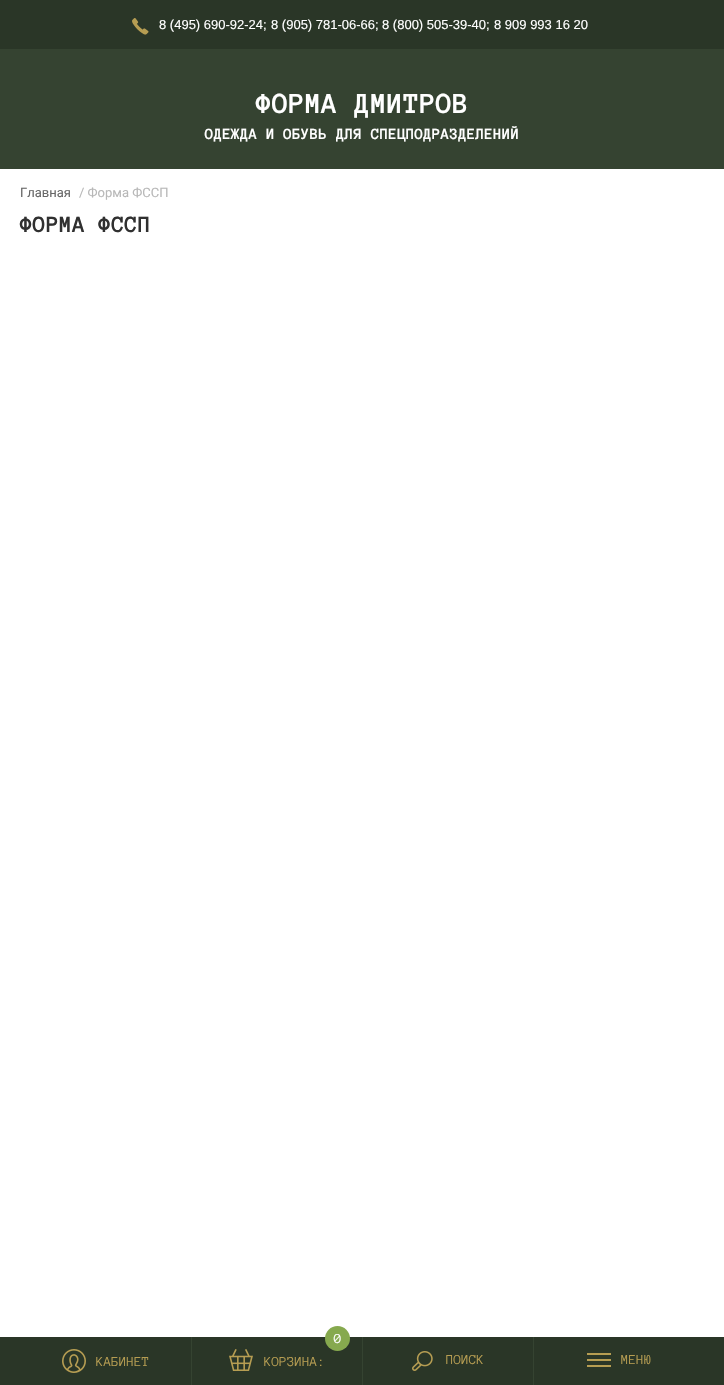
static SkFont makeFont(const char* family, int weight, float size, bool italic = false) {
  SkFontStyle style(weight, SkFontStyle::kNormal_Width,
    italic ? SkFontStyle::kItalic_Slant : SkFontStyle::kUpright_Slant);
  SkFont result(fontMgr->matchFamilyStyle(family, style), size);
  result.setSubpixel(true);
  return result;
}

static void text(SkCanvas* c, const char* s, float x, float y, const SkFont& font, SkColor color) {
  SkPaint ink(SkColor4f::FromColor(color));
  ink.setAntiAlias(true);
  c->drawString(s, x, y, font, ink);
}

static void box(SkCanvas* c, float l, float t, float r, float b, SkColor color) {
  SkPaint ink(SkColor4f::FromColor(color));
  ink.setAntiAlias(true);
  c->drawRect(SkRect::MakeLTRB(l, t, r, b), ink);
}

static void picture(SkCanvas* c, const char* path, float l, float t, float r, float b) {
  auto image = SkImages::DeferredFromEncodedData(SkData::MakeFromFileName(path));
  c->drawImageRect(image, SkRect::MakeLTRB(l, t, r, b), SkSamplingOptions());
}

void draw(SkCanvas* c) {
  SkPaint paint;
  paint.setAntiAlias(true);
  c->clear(0xffffffff);
  box(c, 0, 49, 724, 169, 0xff354331);
  box(c, 0, 0, 724, 49, 0xff2a3627);
  picture(c, "img_01.png", 132, 18, 149, 35);
  SkFont face1 = makeFont("Liberation Sans", 400, 13);
  text(c, "8 (495) 690-92-24;", 159, 29, face1, 0xffffffff);
  text(c, "8 (905) 781-06-66;", 271, 29, face1, 0xffffffff);
  text(c, "8 (800) 505-39-40;", 382, 29, face1, 0xffffffff);
  text(c, "8 909 993 16 20", 494, 29, face1, 0xffffffff);
  SkFont face2 = makeFont("Anonymous Pro", 700, 30);
  text(c, "ФОРМА ДМИТРОВ", 256, 113, face2, 0xffffffff);
  SkFont face3 = makeFont("Anonymous Pro", 700, 16);
  text(c, "ОДЕЖДА И ОБУВЬ ДЛЯ СПЕЦПОДРАЗДЕЛЕНИЙ", 205, 139, face3, 0xffffffff);
  SkFont face4 = makeFont("Roboto", 400, 13);
  text(c, "Главная", 20, 197, face4, 0xff676767);
  text(c, "/ Форма ФССП", 79, 197, face4, 0xffb8b8b8);
  SkFont face5 = makeFont("Anonymous Pro", 700, 24);
  text(c, "ФОРМА ФССП", 20, 232, face5, 0xff303030);
  box(c, 0, 1337, 724, 1385, 0xff2a3627);
  picture(c, "img_02.png", 62, 1349, 86, 1373);
  SkFont face6 = makeFont("Anonymous Pro", 400, 14);
  text(c, "КАБИНЕТ", 96, 1366, face6, 0xffb69d52);
  box(c, 191, 1337, 192, 1385, 0xff354331);
  picture(c, "img_03.png", 229, 1349, 253, 1371);
  paint.setColor(0xff86a94e);
  c->drawCircle(337.5f, 1338.5f, 12.5f, paint);
  text(c, "0", 334, 1343, face6, 0xffffffff);
  text(c, "КОРЗИНА:", 264, 1366, face6, 0xffb69d52);
  box(c, 362, 1337, 363, 1385, 0xff354331);
  picture(c, "img_04.png", 412, 1351, 433, 1371);
  text(c, "ПОИСК", 446, 1364, face6, 0xffb69d52);
  box(c, 533, 1337, 534, 1385, 0xff354331);
  picture(c, "img_05.png", 587, 1353, 611, 1367);
  text(c, "МЕНЮ", 621, 1364, face6, 0xffb69d52);
}
